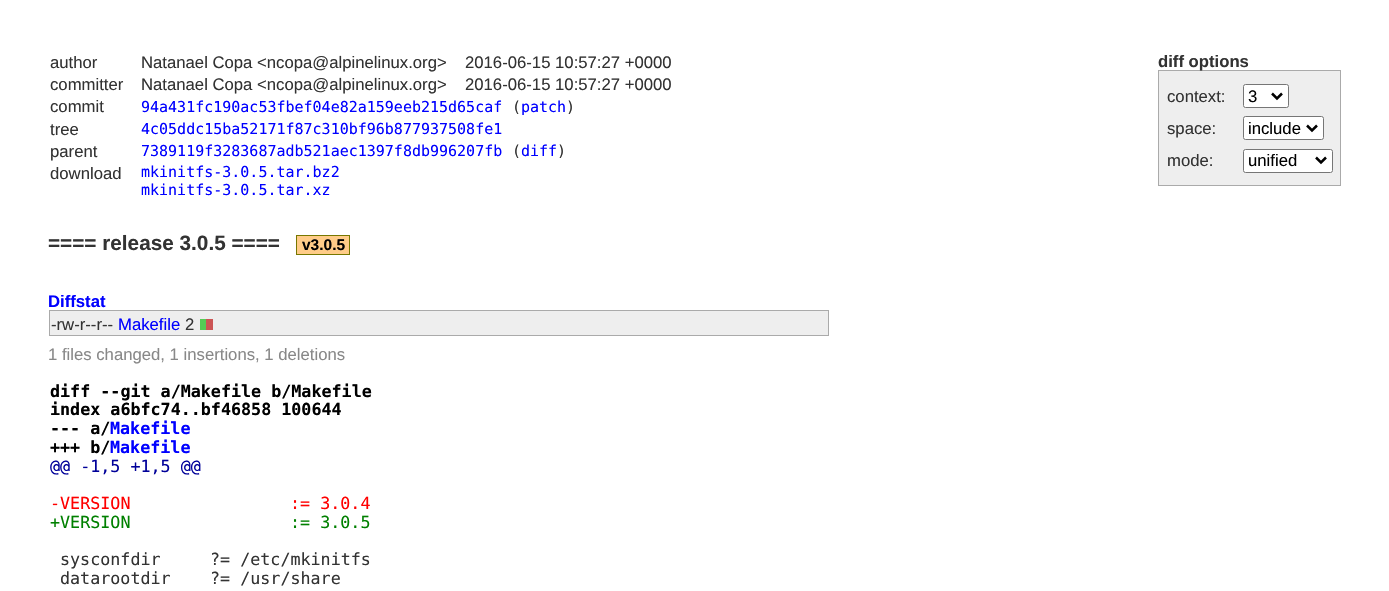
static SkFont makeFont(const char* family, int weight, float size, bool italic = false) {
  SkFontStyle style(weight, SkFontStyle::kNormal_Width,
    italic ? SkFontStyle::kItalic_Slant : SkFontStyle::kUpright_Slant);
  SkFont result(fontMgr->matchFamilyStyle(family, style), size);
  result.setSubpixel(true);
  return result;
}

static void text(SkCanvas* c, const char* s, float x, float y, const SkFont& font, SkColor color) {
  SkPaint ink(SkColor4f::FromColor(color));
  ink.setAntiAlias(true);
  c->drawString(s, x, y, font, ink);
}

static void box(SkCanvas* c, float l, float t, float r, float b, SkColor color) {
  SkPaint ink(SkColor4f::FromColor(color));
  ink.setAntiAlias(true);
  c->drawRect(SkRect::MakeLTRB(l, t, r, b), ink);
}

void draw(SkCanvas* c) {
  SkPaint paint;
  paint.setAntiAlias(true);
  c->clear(0xffffffff);
  SkFont face1 = makeFont("Liberation Sans", 400, 16.7f);
  text(c, "author", 50, 68, face1, 0xff333333);
  text(c, "Natanael Copa <ncopa@alpinelinux.org>", 141, 68, face1, 0xff333333);
  text(c, "2016-06-15 10:57:27 +0000", 465, 68, face1, 0xff333333);
  text(c, "committer", 50, 90, face1, 0xff333333);
  text(c, "Natanael Copa <ncopa@alpinelinux.org>", 141, 90, face1, 0xff333333);
  text(c, "2016-06-15 10:57:27 +0000", 465, 90, face1, 0xff333333);
  text(c, "commit", 50, 112, face1, 0xff333333);
  SkFont face2 = makeFont("DejaVu Sans Mono", 400, 15);
  text(c, "94a431fc190ac53fbef04e82a159eeb215d65caf", 141, 112, face2, 0xff0000ff);
  text(c, "(", 512, 112, face2, 0xff333333);
  text(c, "patch", 521, 112, face2, 0xff0000ff);
  text(c, ")", 566, 112, face2, 0xff333333);
  text(c, "tree", 50, 135, face1, 0xff333333);
  text(c, "4c05ddc15ba52171f87c310bf96b877937508fe1", 141, 134, face2, 0xff0000ff);
  text(c, "parent", 50, 157, face1, 0xff333333);
  text(c, "7389119f3283687adb521aec1397f8db996207fb", 141, 156, face2, 0xff0000ff);
  text(c, "(", 512, 156, face2, 0xff333333);
  text(c, "diff", 521, 156, face2, 0xff0000ff);
  text(c, ")", 557, 156, face2, 0xff333333);
  text(c, "download", 50, 179, face1, 0xff333333);
  text(c, "mkinitfs-3.0.5.tar.bz2", 141, 177, face2, 0xff0000ff);
  text(c, "mkinitfs-3.0.5.tar.xz", 141, 195, face2, 0xff0000ff);
  box(c, 1158, 70, 1341, 71, 0xffaaaaaa);
  box(c, 1340, 70, 1341, 186, 0xffaaaaaa);
  box(c, 1158, 185, 1341, 186, 0xffaaaaaa);
  box(c, 1158, 70, 1159, 186, 0xffaaaaaa);
  SkFont face3 = makeFont("Liberation Sans", 700, 16.7f);
  text(c, "diff options", 1158, 67, face3, 0xff333333);
  box(c, 1159, 71, 1340, 185, 0xffeeeeee);
  text(c, "context:", 1167, 102, face1, 0xff333333);
  paint.setColor(0xffffffff);
  c->drawRoundRect(SkRect::MakeLTRB(1243.5f, 84.5f, 1288.5f, 107.5f), 2, 2, paint);
  paint.setStyle(SkPaint::kStroke_Style);
  paint.setStrokeWidth(1);
  paint.setColor(0xff767676);
  c->drawRoundRect(SkRect::MakeLTRB(1243.5f, 84.5f, 1288.5f, 107.5f), 2, 2, paint);
  paint.setStrokeWidth(2.5f);
  paint.setColor(0xff000000);
  c->drawPath(SkPathBuilder().moveTo(1272, 93.5f).lineTo(1277, 98.5f).lineTo(1282, 93.5f).detach(), paint);
  text(c, "3", 1248, 102, face1, 0xff000000);
  text(c, "space:", 1167, 134, face1, 0xff333333);
  paint.setStyle(SkPaint::kFill_Style);
  paint.setColor(0xffffffff);
  c->drawRoundRect(SkRect::MakeLTRB(1243.5f, 116.5f, 1323.5f, 139.5f), 2, 2, paint);
  paint.setStyle(SkPaint::kStroke_Style);
  paint.setStrokeWidth(1);
  paint.setColor(0xff767676);
  c->drawRoundRect(SkRect::MakeLTRB(1243.5f, 116.5f, 1323.5f, 139.5f), 2, 2, paint);
  paint.setStrokeWidth(2.5f);
  paint.setColor(0xff000000);
  c->drawPath(SkPathBuilder().moveTo(1307, 125.5f).lineTo(1312, 130.5f).lineTo(1317, 125.5f).detach(), paint);
  text(c, "include", 1248, 134, face1, 0xff000000);
  text(c, "mode:", 1167, 166, face1, 0xff333333);
  paint.setStyle(SkPaint::kFill_Style);
  paint.setColor(0xffffffff);
  c->drawRoundRect(SkRect::MakeLTRB(1243.5f, 149.5f, 1332.5f, 172.5f), 2, 2, paint);
  paint.setStyle(SkPaint::kStroke_Style);
  paint.setStrokeWidth(1);
  paint.setColor(0xff767676);
  c->drawRoundRect(SkRect::MakeLTRB(1243.5f, 149.5f, 1332.5f, 172.5f), 2, 2, paint);
  paint.setStrokeWidth(2.5f);
  paint.setColor(0xff000000);
  c->drawPath(SkPathBuilder().moveTo(1316, 157.5f).lineTo(1321, 162.5f).lineTo(1326, 157.5f).detach(), paint);
  text(c, "unified", 1248, 166, face1, 0xff000000);
  SkFont face4 = makeFont("Liberation Sans", 700, 20.75f);
  text(c, "==== release 3.0.5 ====", 48, 250, face4, 0xff333333);
  paint.setStyle(SkPaint::kFill_Style);
  paint.setColor(0xffffcc88);
  c->drawRect(SkRect::MakeLTRB(296.5f, 235.5f, 349.5f, 254.5f), paint);
  paint.setStyle(SkPaint::kStroke_Style);
  paint.setStrokeWidth(1);
  paint.setColor(0xff777700);
  c->drawRect(SkRect::MakeLTRB(296.5f, 235.5f, 349.5f, 254.5f), paint);
  SkFont face5 = makeFont("Liberation Sans", 700, 15.5f);
  text(c, "v3.0.5", 302, 250, face5, 0xff000000);
  text(c, "Diffstat", 48, 307, face3, 0xff0000ff);
  box(c, 50, 311, 828, 335, 0xffeeeeee);
  box(c, 49, 310, 829, 311, 0xffaaaaaa);
  box(c, 828, 310, 829, 336, 0xffaaaaaa);
  box(c, 49, 335, 829, 336, 0xffaaaaaa);
  box(c, 49, 310, 50, 336, 0xffaaaaaa);
  text(c, "-rw-r--r--", 51, 330, face1, 0xff333333);
  text(c, "Makefile", 118, 330, face1, 0xff0000ff);
  text(c, "2", 185, 330, face1, 0xff333333);
  box(c, 200, 319, 206, 330, 0xff55cc55);
  box(c, 206, 319, 213, 330, 0xffcc5555);
  text(c, "1 files changed, 1 insertions, 1 deletions", 48, 360, face1, 0xff888888);
  SkFont face6 = makeFont("DejaVu Sans Mono", 700, 16.7f);
  text(c, "diff --git a/Makefile b/Makefile", 50, 397, face6, 0xff000000);
  text(c, "index a6bfc74..bf46858 100644", 50, 415, face6, 0xff000000);
  text(c, "--- a/", 50, 434, face6, 0xff000000);
  text(c, "Makefile", 110, 434, face6, 0xff0000ff);
  text(c, "+++ b/", 50, 453, face6, 0xff000000);
  text(c, "Makefile", 110, 453, face6, 0xff0000ff);
  SkFont face7 = makeFont("DejaVu Sans Mono", 400, 16.7f);
  text(c, "@@ -1,5 +1,5 @@", 50, 472, face7, 0xff000099);
  text(c, "-VERSION", 50, 509, face7, 0xffff0000);
  text(c, ":= 3.0.4", 290, 509, face7, 0xffff0000);
  text(c, "+VERSION", 50, 528, face7, 0xff008000);
  text(c, ":= 3.0.5", 290, 528, face7, 0xff008000);
  text(c, "sysconfdir", 60, 565, face7, 0xff333333);
  text(c, "?= /etc/mkinitfs", 210, 565, face7, 0xff333333);
  text(c, "datarootdir", 60, 584, face7, 0xff333333);
  text(c, "?= /usr/share", 210, 584, face7, 0xff333333);
}
